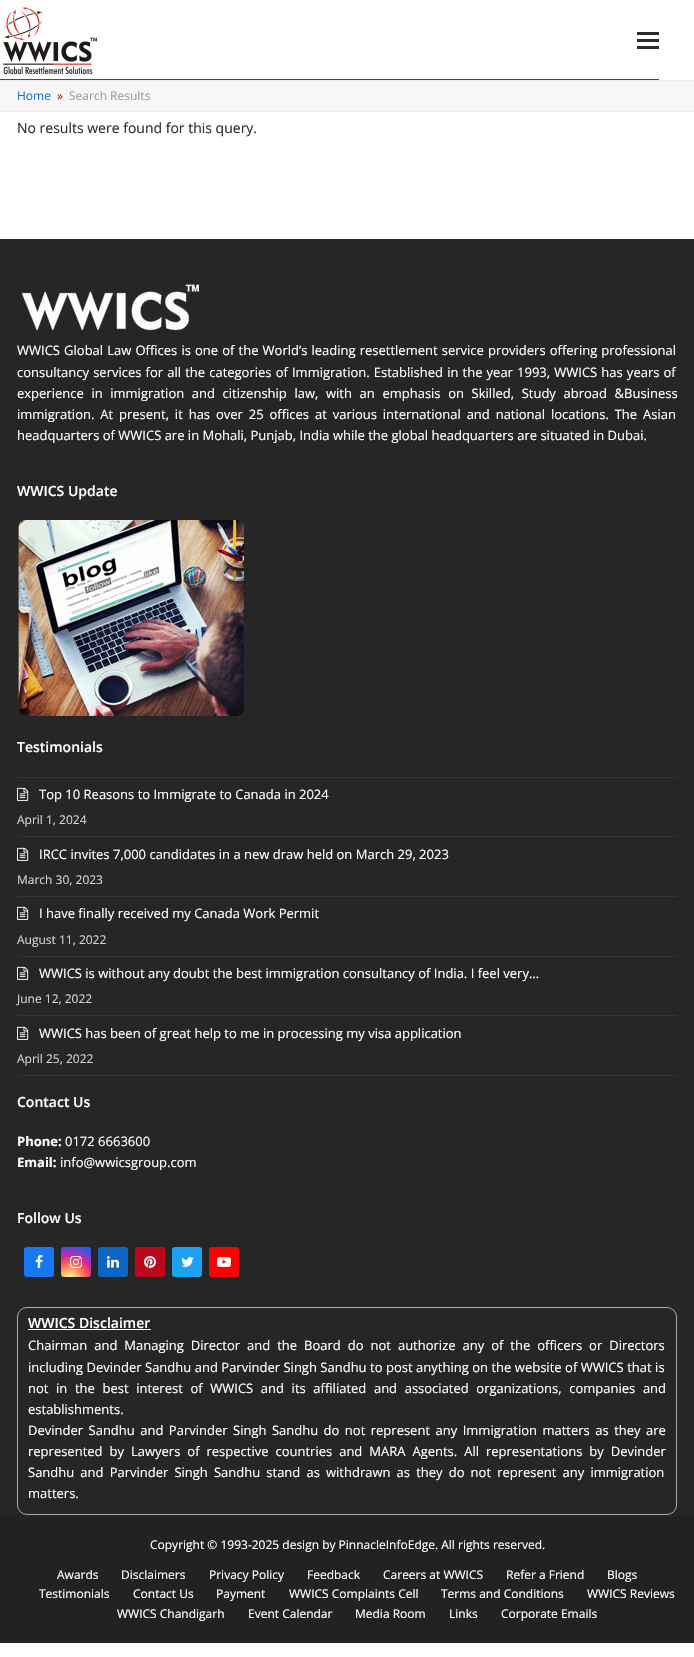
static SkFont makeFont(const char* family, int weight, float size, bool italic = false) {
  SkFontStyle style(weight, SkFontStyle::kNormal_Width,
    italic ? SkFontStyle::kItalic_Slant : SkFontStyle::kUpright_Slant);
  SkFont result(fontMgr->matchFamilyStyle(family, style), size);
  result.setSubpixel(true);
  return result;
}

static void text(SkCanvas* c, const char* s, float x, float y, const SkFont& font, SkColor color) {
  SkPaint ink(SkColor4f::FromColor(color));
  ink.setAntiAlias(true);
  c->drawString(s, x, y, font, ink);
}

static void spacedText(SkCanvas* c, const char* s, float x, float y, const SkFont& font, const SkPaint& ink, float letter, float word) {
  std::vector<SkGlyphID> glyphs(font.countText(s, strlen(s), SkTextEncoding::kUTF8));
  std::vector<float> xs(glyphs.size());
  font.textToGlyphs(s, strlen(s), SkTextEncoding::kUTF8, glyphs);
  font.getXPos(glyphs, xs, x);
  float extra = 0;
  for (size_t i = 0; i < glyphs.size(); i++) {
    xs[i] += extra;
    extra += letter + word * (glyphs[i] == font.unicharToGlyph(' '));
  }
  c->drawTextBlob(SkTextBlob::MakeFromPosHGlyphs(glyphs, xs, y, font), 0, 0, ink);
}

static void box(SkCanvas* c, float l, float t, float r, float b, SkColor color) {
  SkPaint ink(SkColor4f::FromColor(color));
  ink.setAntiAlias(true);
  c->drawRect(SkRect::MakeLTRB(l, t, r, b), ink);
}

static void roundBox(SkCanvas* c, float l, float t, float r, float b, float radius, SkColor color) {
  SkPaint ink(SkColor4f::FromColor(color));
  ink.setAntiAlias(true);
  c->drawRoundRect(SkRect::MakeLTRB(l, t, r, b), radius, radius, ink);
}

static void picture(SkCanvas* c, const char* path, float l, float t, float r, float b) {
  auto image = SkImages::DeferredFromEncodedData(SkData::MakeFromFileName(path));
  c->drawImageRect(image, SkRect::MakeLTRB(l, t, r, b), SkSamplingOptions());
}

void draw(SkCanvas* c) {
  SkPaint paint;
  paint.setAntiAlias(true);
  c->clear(0xffffffff);
  box(c, 0, 79, 659, 80, 0xffff0000);
  picture(c, "img_01.png", 3, 7, 97, 74);
  box(c, 637, 39, 659, 42, 0xff2d2c2c);
  box(c, 637, 32, 659, 35, 0xff2d2c2c);
  box(c, 637, 46, 659, 49, 0xff2d2c2c);
  box(c, 0, 81, 694, 111, 0xfff7f7f7);
  box(c, 0, 80, 694, 81, 0xffeeeeee);
  box(c, 0, 111, 694, 112, 0xffeeeeee);
  SkFont face1 = makeFont("Open Sans", 400, 12);
  text(c, "Home", 17, 100, face1, 0xff1a73e8);
  text(c, "»", 57, 100, face1, 0xffd80e0e);
  text(c, "Search Results", 69, 100, face1, 0xff9e9e9e);
  SkFont face2 = makeFont("Open Sans", 400, 14);
  text(c, "No results were found for this query.", 17, 133, face2, 0xff2d2c2c);
  box(c, 0, 239, 694, 1515, 0xff262626);
  picture(c, "img_02.png", 22, 284, 199, 331);
  SkFont face3 = makeFont("Open Sans", 400, 13);
  paint.setColor(0xffffffff);
  spacedText(c, "WWICS Global Law Offices is one of the World’s leading resettlement service providers offering professional", 17, 355, face3, paint, 0, 0.75f);
  spacedText(c, "consultancy services for all the categories of Immigration. Established in the year 1993, WWICS has years of", 17, 377, face3, paint, 0, 0.75f);
  spacedText(c, "experience in immigration and citizenship law, with an emphasis on Skilled, Study abroad &Business", 17, 398, face3, paint, 0, 4.25f);
  spacedText(c, "immigration. At present, it has over 25 offices at various international and national locations. The Asian", 17, 419, face3, paint, 0, 2.5f);
  text(c, "headquarters of WWICS are in Mohali, Punjab, India while the global headquarters are situated in Dubai.", 17, 440, face3, 0xffffffff);
  SkFont face4 = makeFont("Open Sans", 600, 14);
  text(c, "WWICS Update", 17, 496, face4, 0xffffffff);
  picture(c, "img_03.png", 18, 520, 244, 716);
  text(c, "Testimonials", 17, 752, face4, 0xffffffff);
  box(c, 17, 777, 677, 778, 0xff333333);
  box(c, 17, 836, 677, 837, 0xff333333);
  picture(c, "img_04.png", 17, 787, 29, 801);
  text(c, "Top 10 Reasons to Immigrate to Canada in 2024", 39, 799, face3, 0xffffffff);
  text(c, "April 1, 2024", 17, 824, face1, 0xffd4d4d4);
  box(c, 17, 896, 677, 897, 0xff333333);
  picture(c, "img_04.png", 17, 847, 29, 861);
  text(c, "IRCC invites 7,000 candidates in a new draw held on March 29, 2023", 39, 859, face3, 0xffffffff);
  text(c, "March 30, 2023", 17, 884, face1, 0xffd4d4d4);
  box(c, 17, 956, 677, 957, 0xff333333);
  picture(c, "img_04.png", 17, 906, 29, 920);
  text(c, "I have finally received my Canada Work Permit", 39, 918, face3, 0xffffffff);
  text(c, "August 11, 2022", 17, 944, face1, 0xffd4d4d4);
  box(c, 17, 1015, 677, 1016, 0xff333333);
  picture(c, "img_04.png", 17, 966, 29, 980);
  text(c, "WWICS is without any doubt the best immigration consultancy of India. I feel very…", 39, 978, face3, 0xffffffff);
  text(c, "June 12, 2022", 17, 1003, face1, 0xffd4d4d4);
  box(c, 17, 1075, 677, 1076, 0xff333333);
  picture(c, "img_04.png", 17, 1026, 29, 1040);
  text(c, "WWICS has been of great help to me in processing my visa application", 39, 1038, face3, 0xffffffff);
  text(c, "April 25, 2022", 17, 1063, face1, 0xffd4d4d4);
  text(c, "Contact Us", 17, 1107, face4, 0xffffffff);
  SkFont face5 = makeFont("Open Sans", 700, 13);
  text(c, "Phone:", 17, 1146, face5, 0xffffffff);
  text(c, "0172 6663600", 65, 1146, face3, 0xffffffff);
  text(c, "Email:", 17, 1167, face5, 0xffffffff);
  text(c, "info@wwicsgroup.com", 60, 1167, face3, 0xffffffff);
  text(c, "Follow Us", 17, 1223, face4, 0xffffffff);
  roundBox(c, 24, 1247, 54, 1277, 3, 0xff1877f2);
  picture(c, "img_05.png", 35, 1255, 43, 1268);
  {
    const SkColor colors[] = {0xfffdf497, 0xfffdf497, 0xfffd5949, 0xffd6249f, 0xff285aeb};
    const float stops[] = {0, 0.05f, 0.45f, 0.6f, 0.9f};
    paint.setShader(SkGradientShader::MakeRadial({70, 1279}, 38, colors, stops, 5, SkTileMode::kClamp));
    paint.setAlpha(255);
  }
  c->drawRoundRect(SkRect::MakeLTRB(61, 1247, 91, 1277), 3, 3, paint);
  picture(c, "img_06.png", 70, 1256, 82, 1268);
  roundBox(c, 98, 1247, 128, 1277, 3, 0xff0a66c2);
  picture(c, "img_07.png", 107, 1256, 119, 1268);
  roundBox(c, 135, 1247, 165, 1277, 3, 0xffbd081c);
  picture(c, "img_08.png", 144, 1256, 156, 1268);
  roundBox(c, 172, 1247, 202, 1277, 3, 0xff1da1f2);
  picture(c, "img_09.png", 181, 1257, 194, 1267);
  roundBox(c, 209, 1247, 239, 1277, 3, 0xffff0000);
  picture(c, "img_10.png", 217, 1257, 231, 1267);
  paint.setStyle(SkPaint::kStroke_Style);
  paint.setStrokeWidth(1);
  paint.setShader(nullptr);
  paint.setColor(0xffababab);
  c->drawRoundRect(SkRect::MakeLTRB(17.5f, 1307.5f, 676.5f, 1514.5f), 9.5f, 9.5f, paint);
  text(c, "WWICS Disclaimer", 28, 1328, face4, 0xffffffff);
  box(c, 28, 1329, 151, 1330, 0xffffffff);
  paint.setStyle(SkPaint::kFill_Style);
  paint.setColor(0xffffffff);
  spacedText(c, "Chairman and Managing Director and the Board do not authorize any of the officers or Directors", 28, 1350, face3, paint, 0, 3.6f);
  spacedText(c, "including Devinder Sandhu and Parvinder Singh Sandhu to post anything on the website of WWICS that is", 28, 1372, face3, paint, 0, 0.1f);
  spacedText(c, "not in the best interest of WWICS and its affiliated and associated organizations, companies and", 28, 1393, face3, paint, 0, 4.25f);
  text(c, "establishments.", 28, 1414, face3, 0xffffffff);
  spacedText(c, "Devinder Sandhu and Parvinder Singh Sandhu do not represent any Immigration matters as they are", 28, 1435, face3, paint, 0, 2.1f);
  spacedText(c, "represented by Lawyers of respective countries and MARA Agents. All representations by Devinder", 28, 1456, face3, paint, 0, 3.6f);
  spacedText(c, "Sandhu and Parvinder Singh Sandhu stand as withdrawn as they do not represent any immigration", 28, 1477, face3, paint, 0, 2.75f);
  text(c, "matters.", 28, 1498, face3, 0xffffffff);
  box(c, 0, 1515, 694, 1643, 0xff222222);
  text(c, "Copyright © 1993-2025 design by PinnacleInfoEdge. All rights reserved.", 150, 1549, face1, 0xffffffff);
  text(c, "Awards", 57, 1579, face1, 0xffffffff);
  text(c, "Disclaimers", 121, 1579, face1, 0xffffffff);
  text(c, "Privacy Policy", 209, 1579, face1, 0xffffffff);
  text(c, "Feedback", 307, 1579, face1, 0xffffffff);
  text(c, "Careers at WWICS", 383, 1579, face1, 0xffffffff);
  text(c, "Refer a Friend", 506, 1579, face1, 0xffffffff);
  text(c, "Blogs", 607, 1579, face1, 0xffffffff);
  text(c, "Testimonials", 39, 1598, face1, 0xffffffff);
  text(c, "Contact Us", 133, 1598, face1, 0xffffffff);
  text(c, "Payment", 216, 1598, face1, 0xffffffff);
  text(c, "WWICS Complaints Cell", 289, 1598, face1, 0xffffffff);
  text(c, "Terms and Conditions", 441, 1598, face1, 0xffffffff);
  text(c, "WWICS Reviews", 587, 1598, face1, 0xffffffff);
  text(c, "WWICS Chandigarh", 117, 1618, face1, 0xffffffff);
  text(c, "Event Calendar", 248, 1618, face1, 0xffffffff);
  text(c, "Media Room", 355, 1618, face1, 0xffffffff);
  text(c, "Links", 449, 1618, face1, 0xffffffff);
  text(c, "Corporate Emails", 501, 1618, face1, 0xffffffff);
}
